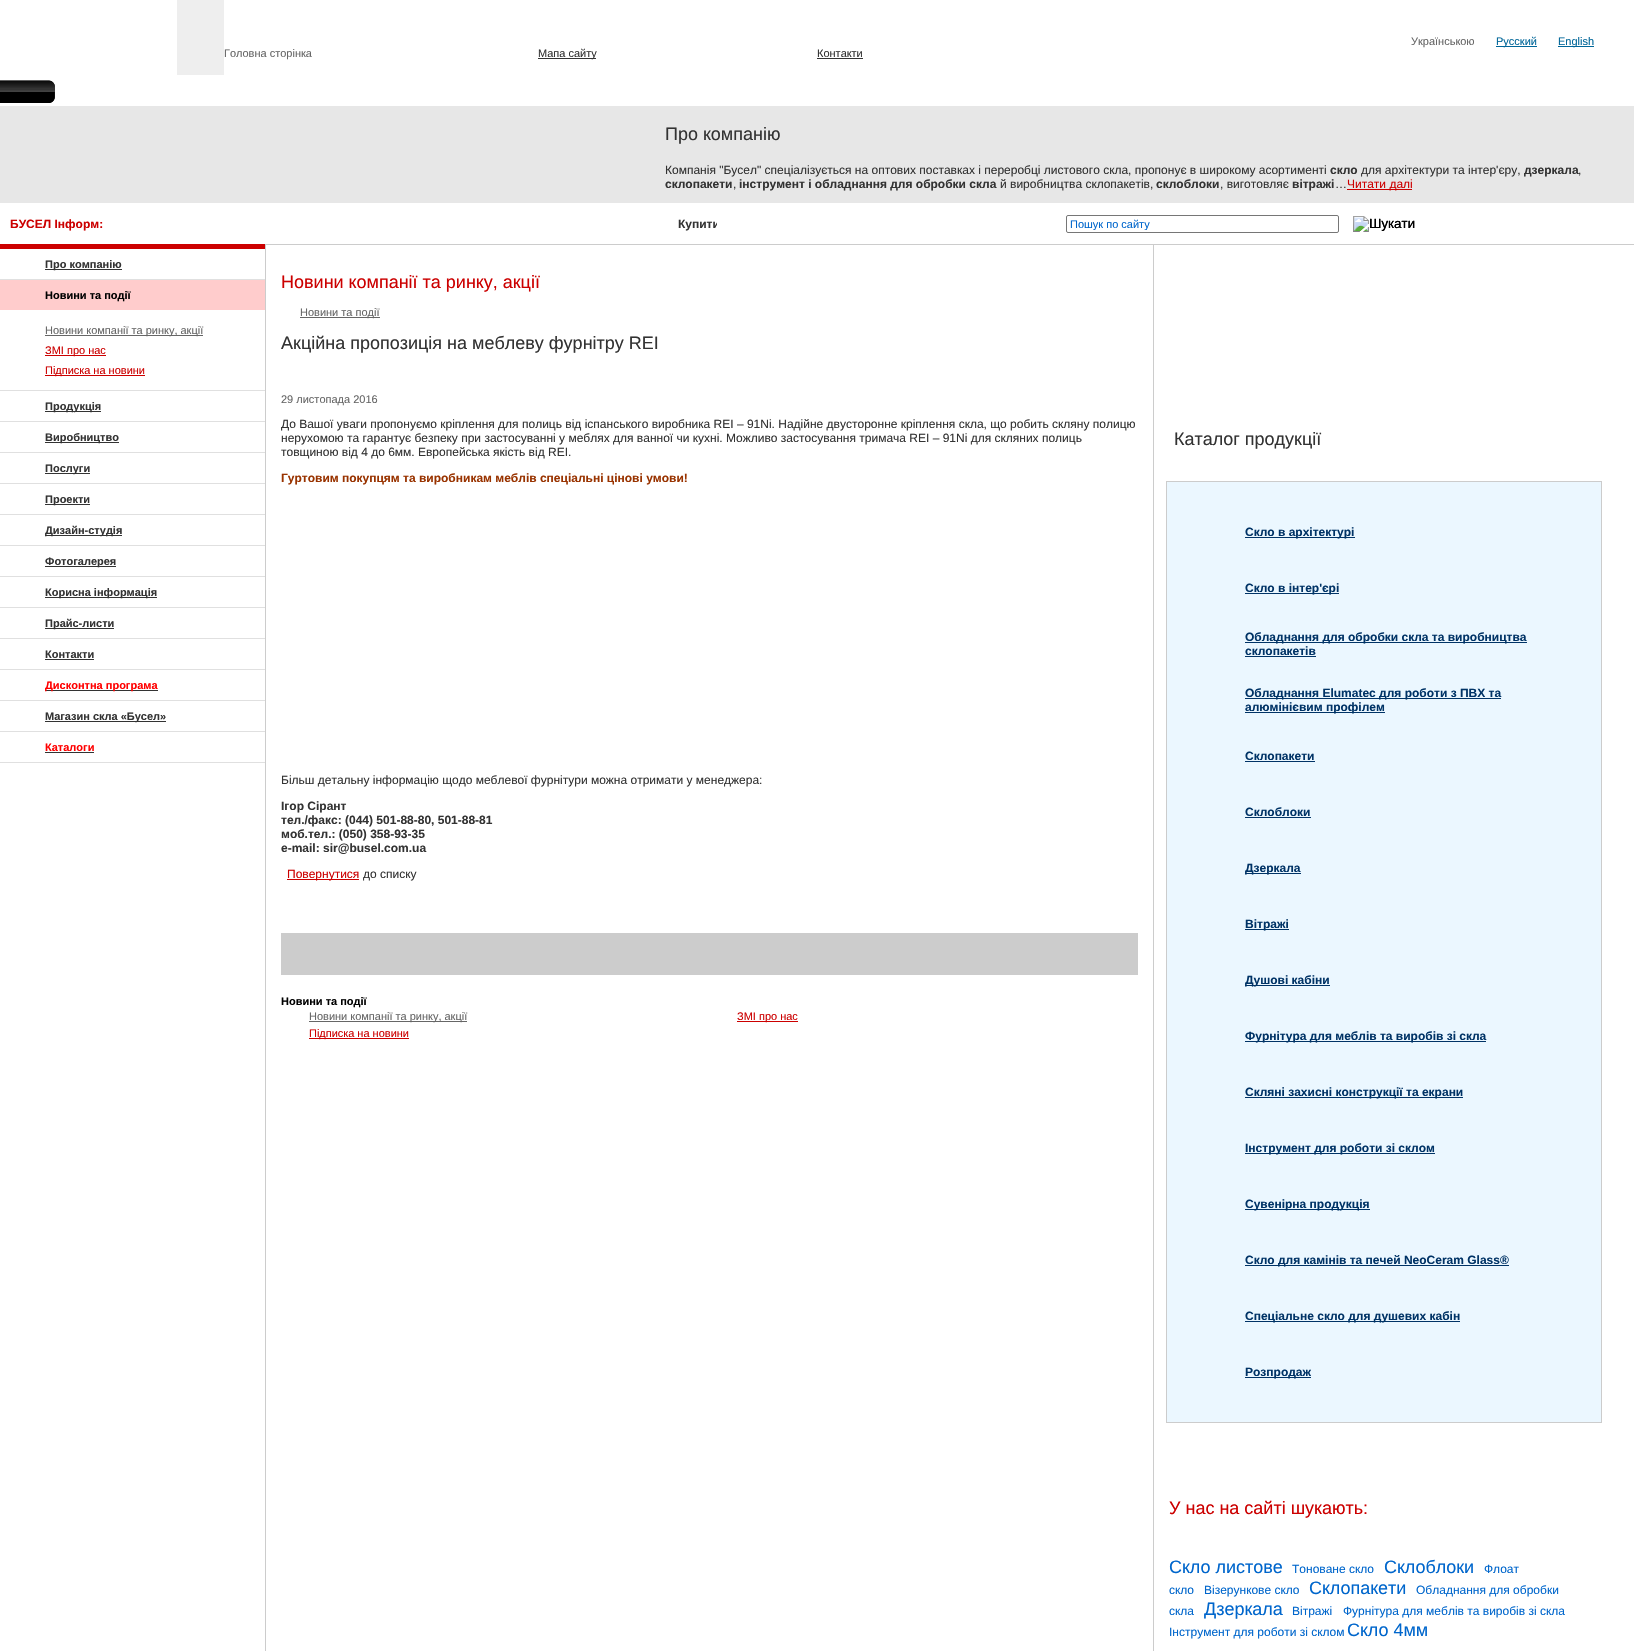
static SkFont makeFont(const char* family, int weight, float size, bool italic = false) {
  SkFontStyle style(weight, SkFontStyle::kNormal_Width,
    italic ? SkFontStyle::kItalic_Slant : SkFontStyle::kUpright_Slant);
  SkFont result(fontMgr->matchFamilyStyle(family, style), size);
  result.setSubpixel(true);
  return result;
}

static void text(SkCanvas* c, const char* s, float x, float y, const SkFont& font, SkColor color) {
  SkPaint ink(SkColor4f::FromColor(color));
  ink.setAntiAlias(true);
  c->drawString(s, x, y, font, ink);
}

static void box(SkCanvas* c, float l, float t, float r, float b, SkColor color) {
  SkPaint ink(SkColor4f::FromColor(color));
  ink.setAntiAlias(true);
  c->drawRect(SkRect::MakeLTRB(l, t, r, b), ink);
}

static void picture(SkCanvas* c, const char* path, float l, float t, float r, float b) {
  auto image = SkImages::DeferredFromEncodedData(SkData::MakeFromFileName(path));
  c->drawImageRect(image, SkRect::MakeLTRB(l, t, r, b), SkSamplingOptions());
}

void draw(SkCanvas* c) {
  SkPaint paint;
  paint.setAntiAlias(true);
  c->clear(0xffffffff);
  SkFont face1 = makeFont("Liberation Sans", 400, 11);
  text(c, "Українською", 1411, 45, face1, 0xff666666);
  box(c, 1496, 46, 1537, 47, 0xff006699);
  text(c, "Русский", 1496, 45, face1, 0xff006699);
  box(c, 1558, 46, 1594, 47, 0xff006699);
  text(c, "English", 1558, 45, face1, 0xff006699);
  box(c, 177, 0, 224, 75, 0xffeeeeee);
  text(c, "Головна сторінка", 224, 57, face1, 0xff666666);
  box(c, 538, 58, 596, 59, 0xff333333);
  text(c, "Мапа сайту", 538, 57, face1, 0xff333333);
  text(c, "Контакти", 817, 57, face1, 0xff333333);
  box(c, 817, 58, 863, 59, 0xff333333);
  picture(c, "img_01.png", 0, 80, 55, 103);
  box(c, 0, 106, 1634, 203, 0xffe7e7e7);
  SkFont face2 = makeFont("Liberation Sans", 400, 18);
  text(c, "Про компанію", 665, 140, face2, 0xff333333);
  SkFont face3 = makeFont("Liberation Sans", 400, 12);
  text(c, "Компанія \"Бусел\" спеціалізується на оптових поставках і переробці листового скла, пропонує в широкому асортименті", 665, 174, face3, 0xff333333);
  SkFont face4 = makeFont("Liberation Sans", 700, 12);
  text(c, "скло", 1330, 174, face4, 0xff333333);
  text(c, "для архітектури та інтер'єру,", 1361, 174, face3, 0xff333333);
  text(c, "дзеркала", 1524, 174, face4, 0xff333333);
  text(c, ",", 1578, 174, face3, 0xff333333);
  text(c, "склопакети", 665, 188, face4, 0xff333333);
  text(c, ",", 733, 188, face3, 0xff333333);
  text(c, "інструмент і обладнання для обробки скла", 739, 188, face4, 0xff333333);
  text(c, "й виробництва склопакетів,", 1000, 188, face3, 0xff333333);
  text(c, "склоблоки", 1156, 188, face4, 0xff333333);
  text(c, ", виготовляє", 1220, 188, face3, 0xff333333);
  text(c, "вітражі", 1292, 188, face4, 0xff333333);
  text(c, "…", 1335, 188, face3, 0xff333333);
  box(c, 1347, 189, 1412, 190, 0xffcc0000);
  text(c, "Читати далі", 1347, 188, face3, 0xffcc0000);
  text(c, "БУСЕЛ Інформ:", 10, 228, face4, 0xffcc0000);
  c->save();
  c->clipRect(SkRect::MakeLTRB(217, 217, 717, 231));
  text(c, "Купити", 678, 228, face4, 0xff333333);
  c->restore();
  paint.setStyle(SkPaint::kStroke_Style);
  paint.setStrokeWidth(1);
  paint.setColor(0xff767676);
  c->drawRoundRect(SkRect::MakeLTRB(1066.5f, 215.5f, 1338.5f, 232.5f), 1.5f, 1.5f, paint);
  c->save();
  c->clipRect(SkRect::MakeLTRB(1070, 218, 1335, 230));
  text(c, "Пошук по сайту", 1070, 228, face1, 0xff0066cc);
  c->restore();
  picture(c, "img_02.png", 1353, 216, 1414, 232);
  SkFont face5 = makeFont("Liberation Sans", 400, 13.5f);
  text(c, "Шукати", 1369, 228, face5, 0xff000000);
  box(c, 265, 244, 266, 1651, 0xffcccccc);
  box(c, 0, 244, 265, 249, 0xffcc0000);
  box(c, 45, 269, 122, 270, 0xff333333);
  SkFont face6 = makeFont("Liberation Sans", 700, 11);
  text(c, "Про компанію", 45, 268, face6, 0xff333333);
  box(c, 0, 279, 265, 280, 0xffe0e0e0);
  box(c, 0, 280, 265, 310, 0xffffcccc);
  text(c, "Новини та події", 45, 299, face6, 0xff000000);
  box(c, 45, 335, 203, 336, 0xff666666);
  text(c, "Новини компанії та ринку, акції", 45, 334, face1, 0xff666666);
  box(c, 45, 355, 106, 356, 0xffcc0000);
  text(c, "ЗМІ про нас", 45, 354, face1, 0xffcc0000);
  box(c, 45, 375, 145, 376, 0xffcc0000);
  text(c, "Підписка на новини", 45, 374, face1, 0xffcc0000);
  box(c, 0, 390, 265, 391, 0xffe0e0e0);
  box(c, 45, 411, 101, 412, 0xff333333);
  text(c, "Продукція", 45, 410, face6, 0xff333333);
  box(c, 0, 421, 265, 422, 0xffe0e0e0);
  box(c, 45, 442, 119, 443, 0xff333333);
  text(c, "Виробництво", 45, 441, face6, 0xff333333);
  box(c, 0, 452, 265, 453, 0xffe0e0e0);
  box(c, 45, 473, 90, 474, 0xff333333);
  text(c, "Послуги", 45, 472, face6, 0xff333333);
  box(c, 0, 483, 265, 484, 0xffe0e0e0);
  box(c, 45, 504, 90, 505, 0xff333333);
  text(c, "Проекти", 45, 503, face6, 0xff333333);
  box(c, 0, 514, 265, 515, 0xffe0e0e0);
  box(c, 45, 535, 122, 536, 0xff333333);
  text(c, "Дизайн-студія", 45, 534, face6, 0xff333333);
  box(c, 0, 545, 265, 546, 0xffe0e0e0);
  box(c, 45, 566, 116, 567, 0xff333333);
  text(c, "Фотогалерея", 45, 565, face6, 0xff333333);
  box(c, 0, 576, 265, 577, 0xffe0e0e0);
  box(c, 45, 597, 157, 598, 0xff333333);
  text(c, "Корисна інформація", 45, 596, face6, 0xff333333);
  box(c, 0, 607, 265, 608, 0xffe0e0e0);
  box(c, 45, 628, 114, 629, 0xff333333);
  text(c, "Прайс-листи", 45, 627, face6, 0xff333333);
  box(c, 0, 638, 265, 639, 0xffe0e0e0);
  text(c, "Контакти", 45, 658, face6, 0xff333333);
  box(c, 45, 659, 94, 660, 0xff333333);
  box(c, 0, 669, 265, 670, 0xffe0e0e0);
  box(c, 45, 690, 158, 691, 0xff333333);
  text(c, "Дисконтна програма", 45, 689, face6, 0xffff0000);
  box(c, 0, 700, 265, 701, 0xffe0e0e0);
  box(c, 45, 721, 166, 722, 0xff333333);
  text(c, "Магазин скла «Бусел»", 45, 720, face6, 0xff333333);
  box(c, 0, 731, 265, 732, 0xffe0e0e0);
  text(c, "Каталоги", 45, 751, face6, 0xffff0000);
  box(c, 45, 752, 94, 753, 0xff333333);
  box(c, 0, 762, 265, 763, 0xffe0e0e0);
  box(c, 266, 244, 1634, 245, 0xffcccccc);
  box(c, 1153, 244, 1154, 1651, 0xffcccccc);
  text(c, "Новини компанії та ринку, акції", 281, 288, face2, 0xffcc0000);
  box(c, 300, 317, 380, 318, 0xff666666);
  text(c, "Новини та події", 300, 316, face1, 0xff666666);
  text(c, "Акційна пропозиція на меблеву фурнітру REI", 281, 349, face2, 0xff333333);
  text(c, "29 листопада 2016", 281, 403, face1, 0xff666666);
  text(c, "До Вашої уваги пропонуємо кріплення для полиць від іспанського виробника REI – 91Ni. Надійне двусторонне кріплення скла, що робить скляну полицю", 281, 428, face3, 0xff333333);
  text(c, "нерухомою та гарантує безпеку при застосуванні у меблях для ванної чи кухні. Можливо застосування тримача REI – 91Ni для скляних полиць", 281, 442, face3, 0xff333333);
  text(c, "товщиною від 4 до 6мм. Европейська якість від REI.", 281, 456, face3, 0xff333333);
  text(c, "Гуртовим покупцям та виробникам меблів спеціальні цінові умови!", 281, 482, face4, 0xff993300);
  text(c, "Більш детальну інформацію щодо меблевої фурнітури можна отримати у менеджера:", 281, 784, face3, 0xff333333);
  text(c, "Ігор Сірант", 281, 810, face4, 0xff333333);
  text(c, "тел./факс: (044) 501-88-80, 501-88-81", 281, 824, face4, 0xff333333);
  text(c, "моб.тел.: (050) 358-93-35", 281, 838, face4, 0xff333333);
  text(c, "e-mail: sir@busel.com.ua", 281, 852, face4, 0xff333333);
  box(c, 287, 879, 359, 880, 0xffcc0000);
  text(c, "Повернутися", 287, 878, face3, 0xffcc0000);
  text(c, "до списку", 363, 878, face3, 0xff333333);
  box(c, 281, 933, 1138, 975, 0xffcccccc);
  text(c, "Новини та події", 281, 1005, face6, 0xff000000);
  box(c, 309, 1021, 467, 1022, 0xff666666);
  text(c, "Новини компанії та ринку, акції", 309, 1020, face1, 0xff666666);
  box(c, 737, 1021, 798, 1022, 0xffcc0000);
  text(c, "ЗМІ про нас", 737, 1020, face1, 0xffcc0000);
  box(c, 309, 1038, 409, 1039, 0xffcc0000);
  text(c, "Підписка на новини", 309, 1037, face1, 0xffcc0000);
  text(c, "Каталог продукції", 1174, 445, face2, 0xff333333);
  paint.setStyle(SkPaint::kFill_Style);
  paint.setColor(0xffebf7ff);
  c->drawRect(SkRect::MakeLTRB(1166.5f, 481.5f, 1601.5f, 1422.5f), paint);
  paint.setStyle(SkPaint::kStroke_Style);
  paint.setColor(0xffcccccc);
  c->drawRect(SkRect::MakeLTRB(1166.5f, 481.5f, 1601.5f, 1422.5f), paint);
  box(c, 1245, 537, 1355, 538, 0xff003366);
  text(c, "Скло в архітектурі", 1245, 536, face4, 0xff003366);
  box(c, 1245, 593, 1339, 594, 0xff003366);
  text(c, "Скло в інтер'єрі", 1245, 592, face4, 0xff003366);
  box(c, 1245, 642, 1527, 643, 0xff003366);
  text(c, "Обладнання для обробки скла та виробництва", 1245, 641, face4, 0xff003366);
  text(c, "склопакетів", 1245, 655, face4, 0xff003366);
  box(c, 1245, 656, 1316, 657, 0xff003366);
  box(c, 1245, 698, 1501, 699, 0xff003366);
  text(c, "Обладнання Elumatec для роботи з ПВХ та", 1245, 697, face4, 0xff003366);
  box(c, 1245, 712, 1385, 713, 0xff003366);
  text(c, "алюмінієвим профілем", 1245, 711, face4, 0xff003366);
  text(c, "Склопакети", 1245, 760, face4, 0xff003366);
  box(c, 1245, 761, 1315, 762, 0xff003366);
  text(c, "Склоблоки", 1245, 816, face4, 0xff003366);
  box(c, 1245, 817, 1311, 818, 0xff003366);
  box(c, 1245, 873, 1301, 874, 0xff003366);
  text(c, "Дзеркала", 1245, 872, face4, 0xff003366);
  box(c, 1245, 929, 1289, 930, 0xff003366);
  text(c, "Вітражі", 1245, 928, face4, 0xff003366);
  box(c, 1245, 985, 1330, 986, 0xff003366);
  text(c, "Душові кабіни", 1245, 984, face4, 0xff003366);
  box(c, 1245, 1041, 1486, 1042, 0xff003366);
  text(c, "Фурнітура для меблів та виробів зі скла", 1245, 1040, face4, 0xff003366);
  box(c, 1245, 1097, 1463, 1098, 0xff003366);
  text(c, "Скляні захисні конструкції та екрани", 1245, 1096, face4, 0xff003366);
  box(c, 1245, 1153, 1435, 1154, 0xff003366);
  text(c, "Інструмент для роботи зі склом", 1245, 1152, face4, 0xff003366);
  box(c, 1245, 1209, 1370, 1210, 0xff003366);
  text(c, "Сувенірна продукція", 1245, 1208, face4, 0xff003366);
  box(c, 1245, 1265, 1509, 1266, 0xff003366);
  text(c, "Скло для камінів та печей NeoCeram Glass®", 1245, 1264, face4, 0xff003366);
  box(c, 1245, 1321, 1460, 1322, 0xff003366);
  text(c, "Спеціальне скло для душевих кабін", 1245, 1320, face4, 0xff003366);
  box(c, 1245, 1377, 1311, 1378, 0xff003366);
  text(c, "Розпродаж", 1245, 1376, face4, 0xff003366);
  text(c, "У нас на сайті шукають:", 1169, 1514, face2, 0xffcc0000);
  text(c, "Скло листове", 1169, 1573, face2, 0xff0066cc);
  text(c, "Тоноване скло", 1292, 1573, face3, 0xff0066cc);
  text(c, "Склоблоки", 1384, 1573, face2, 0xff0066cc);
  text(c, "Флоат", 1484, 1573, face3, 0xff0066cc);
  text(c, "скло", 1169, 1594, face3, 0xff0066cc);
  text(c, "Візерункове скло", 1204, 1594, face3, 0xff0066cc);
  text(c, "Склопакети", 1309, 1594, face2, 0xff0066cc);
  text(c, "Обладнання для обробки", 1416, 1594, face3, 0xff0066cc);
  text(c, "скла", 1169, 1615, face3, 0xff0066cc);
  text(c, "Дзеркала", 1204, 1615, face2, 0xff0066cc);
  text(c, "Вітражі", 1292, 1615, face3, 0xff0066cc);
  text(c, "Фурнітура для меблів та виробів зі скла", 1343, 1615, face3, 0xff0066cc);
  text(c, "Інструмент для роботи зі склом", 1169, 1636, face3, 0xff0066cc);
  text(c, "Скло 4мм", 1347, 1636, face2, 0xff0066cc);
}
